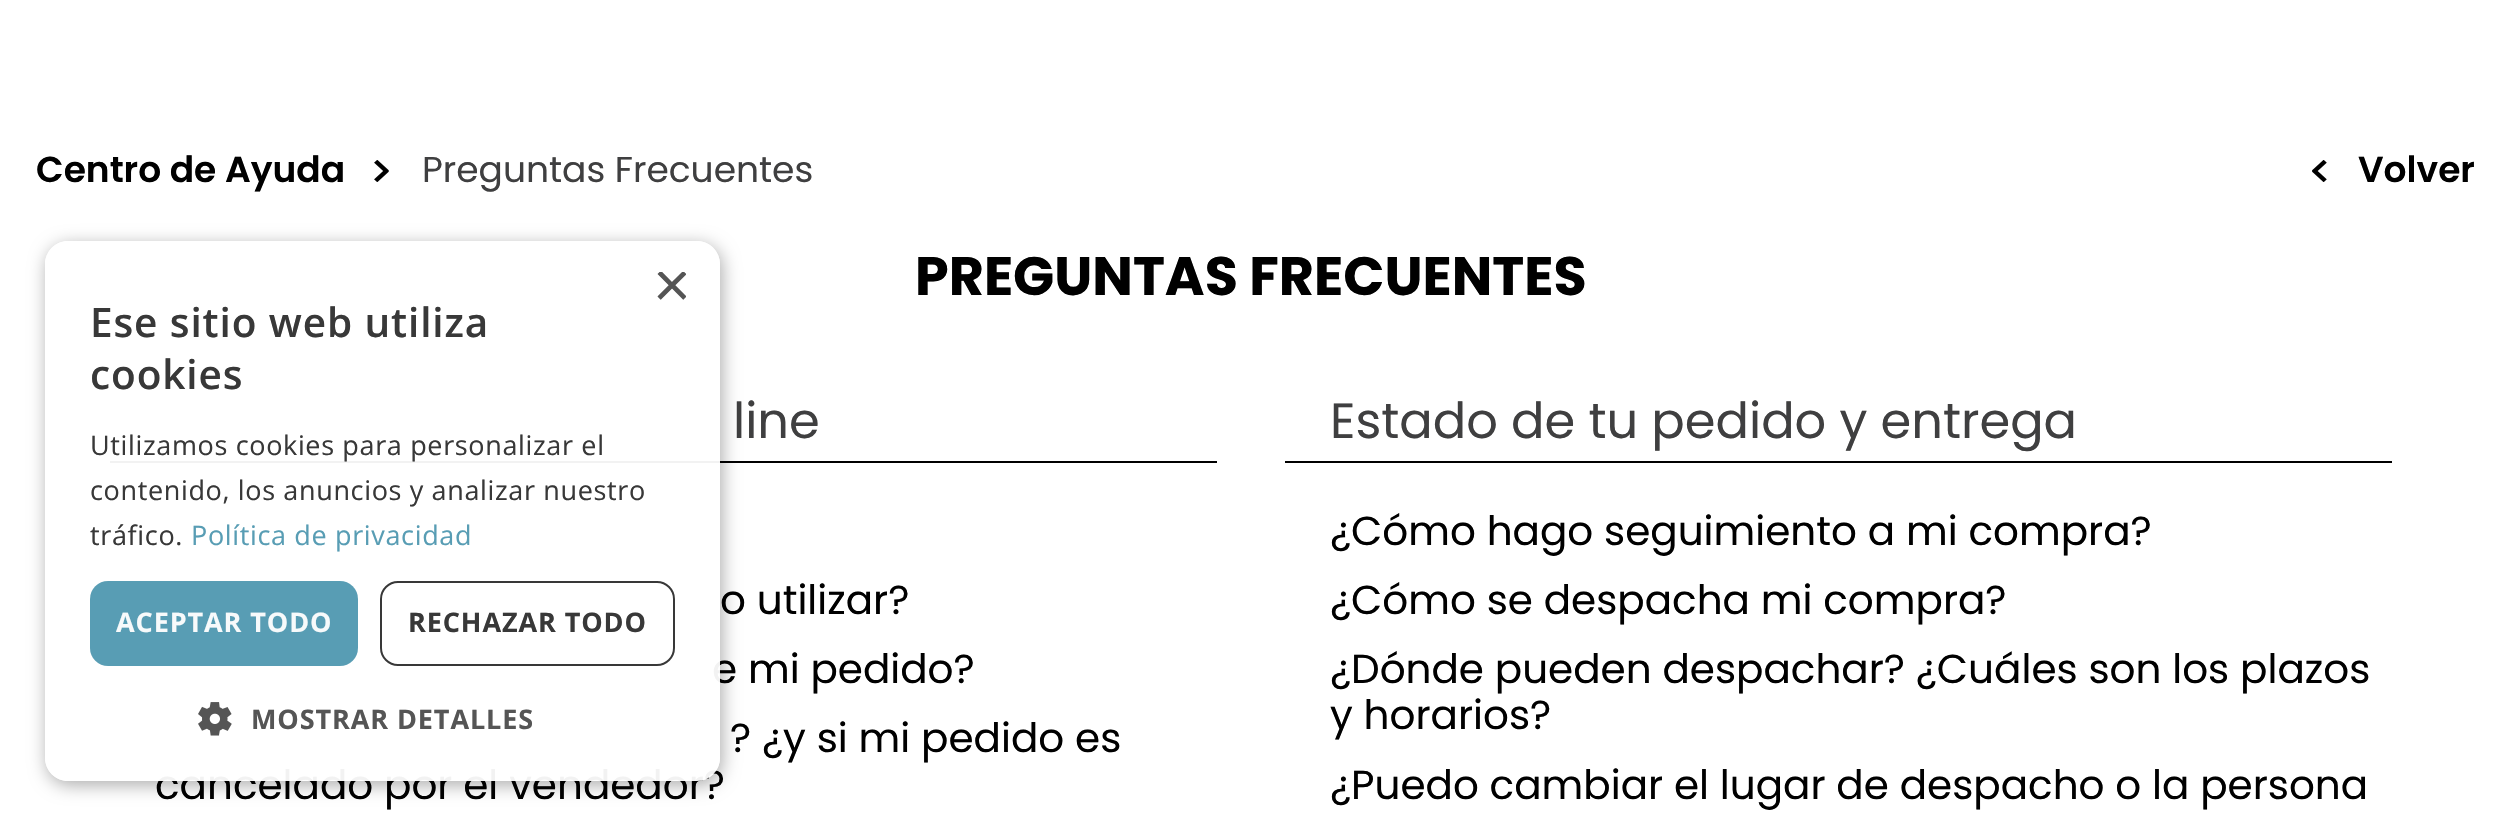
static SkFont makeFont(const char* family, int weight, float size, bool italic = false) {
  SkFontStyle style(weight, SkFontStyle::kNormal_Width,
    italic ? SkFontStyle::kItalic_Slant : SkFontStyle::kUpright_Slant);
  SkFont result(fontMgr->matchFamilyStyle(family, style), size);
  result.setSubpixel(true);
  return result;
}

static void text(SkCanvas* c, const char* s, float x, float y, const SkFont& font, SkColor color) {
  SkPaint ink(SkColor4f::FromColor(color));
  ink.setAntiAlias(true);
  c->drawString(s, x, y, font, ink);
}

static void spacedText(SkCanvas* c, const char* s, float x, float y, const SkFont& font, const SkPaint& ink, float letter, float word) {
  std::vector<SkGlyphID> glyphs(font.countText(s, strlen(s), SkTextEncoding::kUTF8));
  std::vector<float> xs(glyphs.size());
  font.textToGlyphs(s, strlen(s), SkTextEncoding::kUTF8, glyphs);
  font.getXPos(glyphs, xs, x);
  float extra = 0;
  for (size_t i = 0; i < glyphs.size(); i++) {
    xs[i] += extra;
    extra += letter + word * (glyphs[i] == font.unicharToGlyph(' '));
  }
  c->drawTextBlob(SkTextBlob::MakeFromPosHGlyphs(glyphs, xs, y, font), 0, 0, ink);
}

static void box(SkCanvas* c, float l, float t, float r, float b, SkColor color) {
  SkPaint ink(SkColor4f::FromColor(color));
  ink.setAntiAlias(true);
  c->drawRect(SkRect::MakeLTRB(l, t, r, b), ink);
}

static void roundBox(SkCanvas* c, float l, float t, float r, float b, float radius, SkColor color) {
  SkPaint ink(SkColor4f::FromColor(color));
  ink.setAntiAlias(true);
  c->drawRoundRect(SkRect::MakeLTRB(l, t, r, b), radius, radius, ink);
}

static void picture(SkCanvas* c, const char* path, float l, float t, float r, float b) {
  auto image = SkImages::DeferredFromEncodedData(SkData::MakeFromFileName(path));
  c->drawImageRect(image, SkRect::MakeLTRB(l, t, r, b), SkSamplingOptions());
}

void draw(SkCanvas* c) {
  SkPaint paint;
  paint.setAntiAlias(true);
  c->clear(0xffffffff);
  SkFont face1 = makeFont("Poppins", 600, 36);
  text(c, "Centro de Ayuda", 36, 182, face1, 0xff000000);
  picture(c, "img_01.png", 374, 160, 389, 182);
  SkFont face2 = makeFont("Poppins", 400, 36);
  text(c, "Preguntas Frecuentes", 422, 182, face2, 0xff3f3f40);
  picture(c, "img_02.png", 2312, 160, 2327, 182);
  text(c, "Volver", 2358, 182, face1, 0xff000000);
  SkFont face3 = makeFont("Poppins", 700, 54);
  text(c, "PREGUNTAS FRECUENTES", 915, 295, face3, 0xff000000);
  box(c, 110, 461, 1217, 463, 0xff000000);
  SkFont face4 = makeFont("Poppins", 400, 49.5f);
  text(c, "line", 733, 438, face4, 0xff3f3f40);
  SkFont face5 = makeFont("Poppins", 400, 40.5f);
  text(c, "o utilizar?", 720, 614, face5, 0xff000000);
  text(c, "e mi pedido?", 712, 683, face5, 0xff000000);
  text(c, "? ¿y si mi pedido es", 730, 752, face5, 0xff000000);
  text(c, "cancelado por el vendedor?", 155, 799, face5, 0xff000000);
  box(c, 1285, 461, 2392, 463, 0xff000000);
  text(c, "Estado de tu pedido y entrega", 1330, 438, face4, 0xff3f3f40);
  text(c, "¿Cómo hago seguimiento a mi compra?", 1330, 545, face5, 0xff000000);
  text(c, "¿Cómo se despacha mi compra?", 1330, 614, face5, 0xff000000);
  text(c, "¿Dónde pueden despachar? ¿Cuáles son los plazos", 1330, 683, face5, 0xff000000);
  text(c, "y horarios?", 1330, 729, face5, 0xff000000);
  text(c, "¿Puedo cambiar el lugar de despacho o la persona", 1330, 799, face5, 0xff000000);
  c->save();
  c->clipPath(SkPathBuilder(SkPathFillType::kEvenOdd).moveTo(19, 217).lineTo(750, 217).lineTo(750, 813).lineTo(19, 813).close().moveTo(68, 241).lineTo(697, 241).cubicTo(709.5f, 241, 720, 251.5f, 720, 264).lineTo(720, 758).cubicTo(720, 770.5f, 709.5f, 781, 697, 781).lineTo(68, 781).cubicTo(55.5f, 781, 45, 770.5f, 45, 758).lineTo(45, 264).cubicTo(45, 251.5f, 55.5f, 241, 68, 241).close().detach(), true);
  paint.setColor(0x54000000);
  paint.setMaskFilter(SkMaskFilter::MakeBlur(kNormal_SkBlurStyle, 9));
  c->drawRoundRect(SkRect::MakeLTRB(47, 245, 722, 785), 23, 23, paint);
  paint.setMaskFilter(nullptr);
  c->restore();
  roundBox(c, 45, 241, 720, 781, 23, 0xf2ffffff);
  c->save();
  c->clipRect(SkRect::MakeLTRB(653, 272, 686, 306));
  SkFont face6 = makeFont("Liberation Sans", 400, 65);
  text(c, "×", 653, 307, face6, 0xff555555);
  c->restore();
  SkFont face7 = makeFont("Open Sans", 600, 40.5f);
  paint.setColor(0xff383838);
  spacedText(c, "Ese sitio web utiliza", 90, 337, face7, paint, 0.9f, 0);
  spacedText(c, "cookies", 90, 389, face7, paint, 0.9f, 0);
  SkFont face8 = makeFont("Open Sans", 400, 27);
  spacedText(c, "Utilizamos cookies para personalizar el", 90, 455, face8, paint, 0.65f, 0);
  spacedText(c, "contenido, los anuncios y analizar nuestro", 90, 500, face8, paint, 0.65f, 0);
  spacedText(c, "tráfico.", 90, 545, face8, paint, 0.65f, 0);
  paint.setColor(0xff589db4);
  spacedText(c, "Política de privacidad", 191, 545, face8, paint, 0.65f, 0);
  roundBox(c, 90, 581, 358, 666, 18, 0xf24f98b0);
  SkFont face9 = makeFont("Open Sans", 700, 27);
  paint.setColor(0xfff7fafb);
  spacedText(c, "ACEPTAR TODO", 116, 632, face9, paint, 0.9f, 0);
  paint.setStyle(SkPaint::kStroke_Style);
  paint.setStrokeWidth(2);
  paint.setColor(0xf22d2d2d);
  c->drawRoundRect(SkRect::MakeLTRB(381, 582, 674, 665), 17, 17, paint);
  paint.setStyle(SkPaint::kFill_Style);
  paint.setColor(0xff383838);
  spacedText(c, "RECHAZAR TODO", 408, 632, face9, paint, 0.9f, 0);
  picture(c, "img_03.png", 198, 702, 232, 736);
  paint.setColor(0xff555555);
  spacedText(c, "MOSTRAR DETALLES", 251, 729, face9, paint, 0.9f, 0);
}
